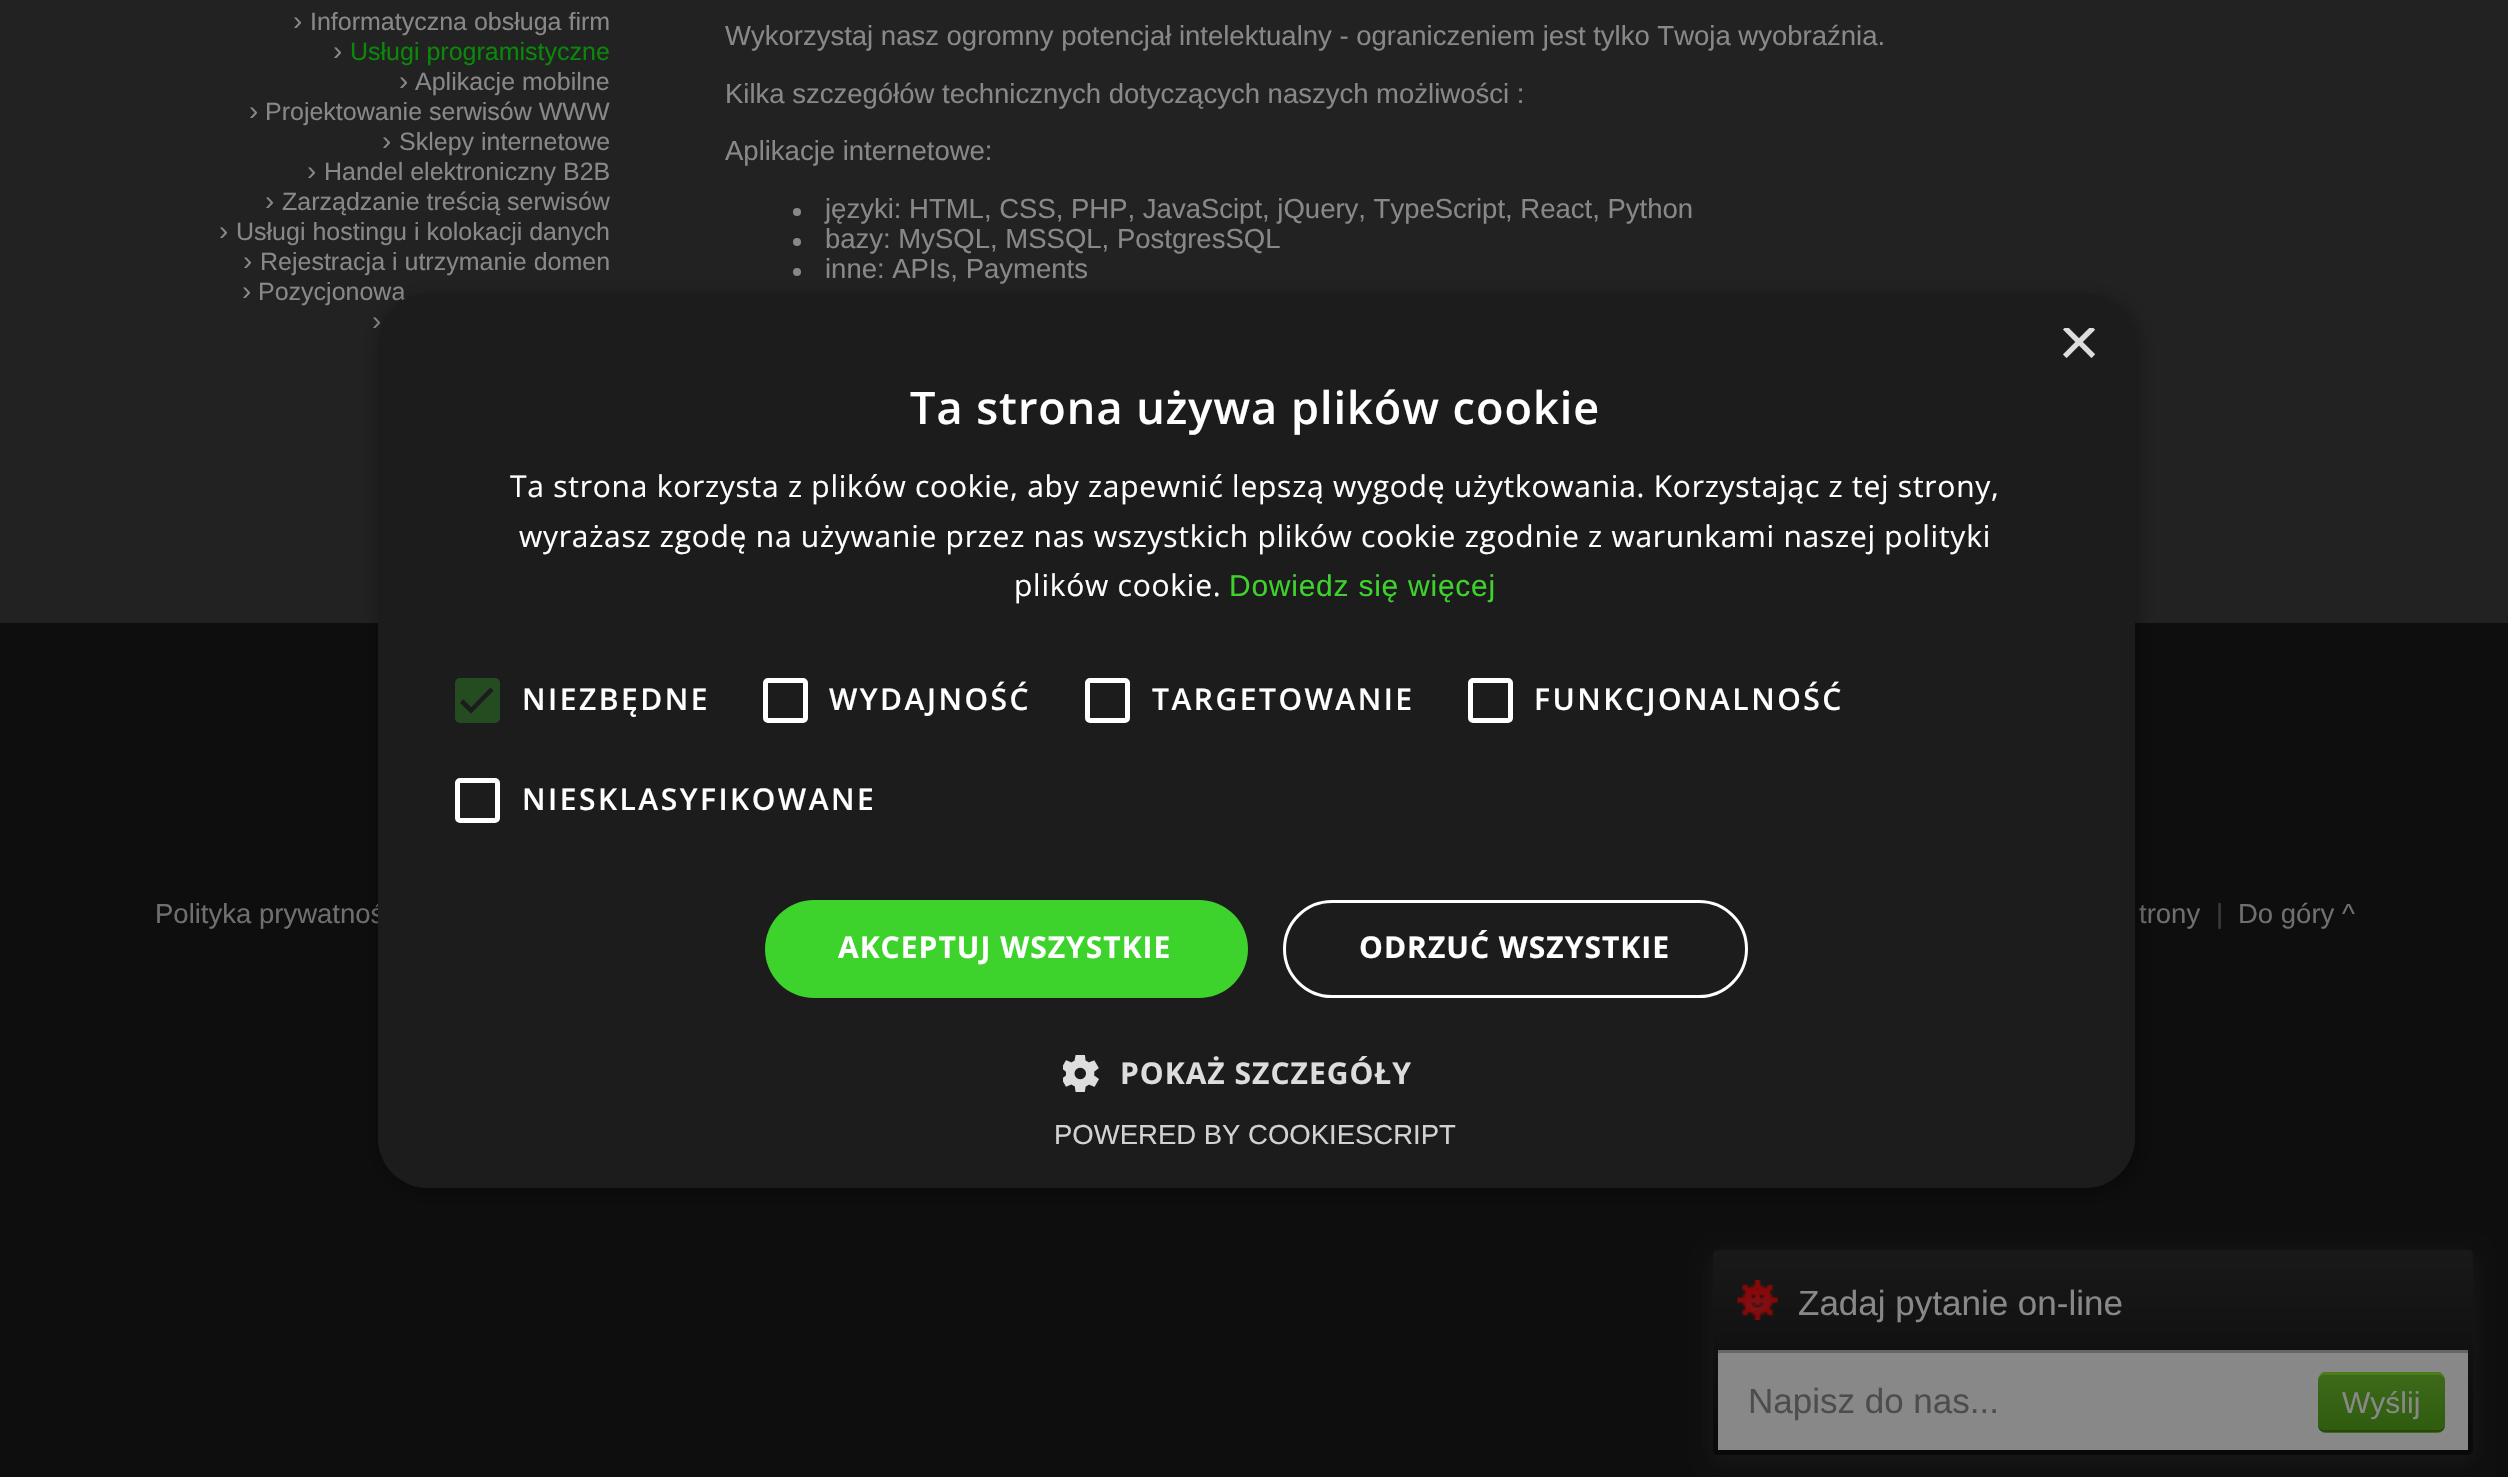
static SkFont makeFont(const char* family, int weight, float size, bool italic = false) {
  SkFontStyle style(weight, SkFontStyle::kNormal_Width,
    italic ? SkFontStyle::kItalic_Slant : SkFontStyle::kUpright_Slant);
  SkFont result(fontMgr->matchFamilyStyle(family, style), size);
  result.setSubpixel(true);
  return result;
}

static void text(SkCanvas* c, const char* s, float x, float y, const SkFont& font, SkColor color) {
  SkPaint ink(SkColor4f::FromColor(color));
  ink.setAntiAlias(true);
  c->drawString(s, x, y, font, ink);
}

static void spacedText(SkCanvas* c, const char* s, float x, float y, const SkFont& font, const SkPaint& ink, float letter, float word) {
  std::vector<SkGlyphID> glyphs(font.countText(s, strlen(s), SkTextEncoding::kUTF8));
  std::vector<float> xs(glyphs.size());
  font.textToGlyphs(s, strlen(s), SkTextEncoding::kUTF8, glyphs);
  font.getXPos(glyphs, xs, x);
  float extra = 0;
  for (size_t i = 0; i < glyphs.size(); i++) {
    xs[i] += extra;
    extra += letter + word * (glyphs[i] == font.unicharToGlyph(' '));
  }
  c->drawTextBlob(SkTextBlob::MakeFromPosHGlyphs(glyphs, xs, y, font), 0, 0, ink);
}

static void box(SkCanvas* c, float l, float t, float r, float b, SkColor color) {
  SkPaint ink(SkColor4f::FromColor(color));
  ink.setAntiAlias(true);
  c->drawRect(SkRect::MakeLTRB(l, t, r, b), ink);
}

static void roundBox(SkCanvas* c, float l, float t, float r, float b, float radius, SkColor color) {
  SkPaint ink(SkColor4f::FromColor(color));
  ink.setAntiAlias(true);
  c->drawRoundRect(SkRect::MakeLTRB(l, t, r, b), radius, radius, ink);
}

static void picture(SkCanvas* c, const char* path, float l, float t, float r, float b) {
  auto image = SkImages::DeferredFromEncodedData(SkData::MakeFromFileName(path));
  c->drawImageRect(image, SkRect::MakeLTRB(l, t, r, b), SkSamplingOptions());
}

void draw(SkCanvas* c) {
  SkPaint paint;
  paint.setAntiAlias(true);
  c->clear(0xff222222);
  SkFont face1 = makeFont("Liberation Sans", 400, 27.5f);
  text(c, "›", 293, 30, face1, 0xff888888);
  SkFont face2 = makeFont("Liberation Sans", 400, 25);
  text(c, "Informatyczna obsługa firm", 310, 30, face2, 0xff888888);
  text(c, "›", 333, 60, face1, 0xff888888);
  text(c, "Usługi programistyczne", 350, 60, face2, 0xff098809);
  text(c, "›", 399, 90, face1, 0xff888888);
  text(c, "Aplikacje mobilne", 415, 90, face2, 0xff888888);
  text(c, "›", 249, 120, face1, 0xff888888);
  text(c, "Projektowanie serwisów WWW", 265, 120, face2, 0xff888888);
  text(c, "›", 382, 150, face1, 0xff888888);
  text(c, "Sklepy internetowe", 399, 150, face2, 0xff888888);
  text(c, "›", 307, 180, face1, 0xff888888);
  text(c, "Handel elektroniczny B2B", 324, 180, face2, 0xff888888);
  text(c, "›", 265, 210, face1, 0xff888888);
  text(c, "Zarządzanie treścią serwisów", 282, 210, face2, 0xff888888);
  text(c, "›", 219, 240, face1, 0xff888888);
  text(c, "Usługi hostingu i kolokacji danych", 236, 240, face2, 0xff888888);
  text(c, "›", 243, 270, face1, 0xff888888);
  text(c, "Rejestracja i utrzymanie domen", 260, 270, face2, 0xff888888);
  text(c, "›", 242, 300, face1, 0xff888888);
  text(c, "Pozycjonowa", 258, 300, face2, 0xff888888);
  text(c, "›", 372, 330, face1, 0xff888888);
  text(c, "Wykorzystaj nasz ogromny potencjał intelektualny - ograniczeniem jest tylko Twoja wyobraźnia.", 725, 45, face1, 0xff888888);
  text(c, "Kilka szczegółów technicznych dotyczących naszych możliwości :", 725, 103, face1, 0xff888888);
  text(c, "Aplikacje internetowe:", 725, 160, face1, 0xff888888);
  paint.setColor(0xff888888);
  c->drawCircle(797, 212, 4, paint);
  text(c, "języki: HTML, CSS, PHP, JavaScipt, jQuery, TypeScript, React, Python", 825, 218, face1, 0xff888888);
  c->drawCircle(797, 242, 4, paint);
  text(c, "bazy: MySQL, MSSQL, PostgresSQL", 825, 248, face1, 0xff888888);
  c->drawCircle(797, 272, 4, paint);
  text(c, "inne: APIs, Payments", 825, 278, face1, 0xff888888);
  box(c, 0, 623, 2508, 1477, 0xff0e0e0e);
  text(c, "Polityka prywatnoś", 155, 923, face1, 0xff6f6f6f);
  text(c, "trony", 2139, 923, face1, 0xff6f6f6f);
  text(c, "|", 2216, 923, face1, 0xff3c3c3c);
  text(c, "Do góry ^", 2238, 923, face1, 0xff6f6f6f);
  c->save();
  c->clipPath(SkPathBuilder(SkPathFillType::kEvenOdd).moveTo(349, 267).lineTo(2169, 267).lineTo(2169, 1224).lineTo(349, 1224).close().moveTo(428, 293).lineTo(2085, 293).cubicTo(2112.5f, 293, 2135, 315.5f, 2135, 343).lineTo(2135, 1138).cubicTo(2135, 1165.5f, 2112.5f, 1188, 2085, 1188).lineTo(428, 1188).cubicTo(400.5f, 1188, 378, 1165.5f, 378, 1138).lineTo(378, 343).cubicTo(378, 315.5f, 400.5f, 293, 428, 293).close().detach(), true);
  paint.setColor(0x59000000);
  paint.setMaskFilter(SkMaskFilter::MakeBlur(kNormal_SkBlurStyle, 10));
  c->drawRoundRect(SkRect::MakeLTRB(380, 298, 2138, 1193), 50, 50, paint);
  paint.setMaskFilter(nullptr);
  c->restore();
  roundBox(c, 378, 293, 2135, 1188, 50, 0xff1c1c1c);
  c->save();
  c->clipRect(SkRect::MakeLTRB(2060, 328, 2098, 365));
  SkFont face3 = makeFont("Liberation Sans", 400, 72);
  text(c, "×", 2058, 366, face3, 0xffdddddd);
  c->restore();
  SkFont face4 = makeFont("Open Sans", 600, 45);
  paint.setColor(0xffffffff);
  spacedText(c, "Ta strona używa plików cookie", 910, 424, face4, paint, 1, 0);
  SkFont face5 = makeFont("Open Sans", 400, 30);
  spacedText(c, "Ta strona korzysta z plików cookie, aby zapewnić lepszą wygodę użytkowania. Korzystając z tej strony,", 510, 497, face5, paint, 0.75f, 0);
  spacedText(c, "wyrażasz zgodę na używanie przez nas wszystkich plików cookie zgodnie z warunkami naszej polityki", 519, 547, face5, paint, 0.75f, 0);
  spacedText(c, "plików cookie.", 1014, 596, face5, paint, 0.75f, 0);
  SkFont face6 = makeFont("Liberation Sans", 400, 30);
  paint.setColor(0xff3ed22c);
  spacedText(c, "Dowiedz się więcej", 1229, 596, face6, paint, 0.75f, 0);
  roundBox(c, 455, 678, 500, 723, 5, 0xff254b20);
  paint.setStyle(SkPaint::kStroke_Style);
  paint.setStrokeWidth(4.6f);
  paint.setColor(0xff1c1c1c);
  c->drawPath(SkPathBuilder().moveTo(461.5f, 701).lineTo(471, 710.5f).lineTo(492, 689).detach(), paint);
  SkFont face7 = makeFont("Open Sans", 600, 30);
  paint.setStyle(SkPaint::kFill_Style);
  paint.setColor(0xffffffff);
  spacedText(c, "NIEZBĘDNE", 522, 710, face7, paint, 2.5f, 0);
  paint.setStyle(SkPaint::kStroke_Style);
  paint.setStrokeWidth(5);
  c->drawRoundRect(SkRect::MakeLTRB(765.5f, 680.5f, 805.5f, 720.5f), 2.5f, 2.5f, paint);
  paint.setStyle(SkPaint::kFill_Style);
  spacedText(c, "WYDAJNOŚĆ", 829, 710, face7, paint, 2.5f, 0);
  paint.setStyle(SkPaint::kStroke_Style);
  c->drawRoundRect(SkRect::MakeLTRB(1087.5f, 680.5f, 1127.5f, 720.5f), 2.5f, 2.5f, paint);
  paint.setStyle(SkPaint::kFill_Style);
  spacedText(c, "TARGETOWANIE", 1152, 710, face7, paint, 2.5f, 0);
  paint.setStyle(SkPaint::kStroke_Style);
  c->drawRoundRect(SkRect::MakeLTRB(1470.5f, 680.5f, 1510.5f, 720.5f), 2.5f, 2.5f, paint);
  paint.setStyle(SkPaint::kFill_Style);
  spacedText(c, "FUNKCJONALNOŚĆ", 1534, 710, face7, paint, 2.5f, 0);
  paint.setStyle(SkPaint::kStroke_Style);
  c->drawRoundRect(SkRect::MakeLTRB(457.5f, 780.5f, 497.5f, 820.5f), 2.5f, 2.5f, paint);
  paint.setStyle(SkPaint::kFill_Style);
  spacedText(c, "NIESKLASYFIKOWANE", 522, 810, face7, paint, 2.5f, 0);
  roundBox(c, 765, 900, 1248, 998, 49, 0xff3ed22c);
  SkFont face8 = makeFont("Open Sans", 700, 30);
  spacedText(c, "AKCEPTUJ WSZYSTKIE", 838, 958, face8, paint, 1, 0);
  paint.setStyle(SkPaint::kStroke_Style);
  paint.setStrokeWidth(3);
  c->drawRoundRect(SkRect::MakeLTRB(1284.5f, 901.5f, 1746.5f, 996.5f), 47.5f, 47.5f, paint);
  paint.setStyle(SkPaint::kFill_Style);
  spacedText(c, "ODRZUĆ WSZYSTKIE", 1359, 958, face8, paint, 1, 0);
  picture(c, "img_01.png", 1063, 1055, 1099, 1092);
  paint.setColor(0xffdddddd);
  spacedText(c, "POKAŻ SZCZEGÓŁY", 1120, 1084, face8, paint, 1, 0);
  text(c, "POWERED BY COOKIESCRIPT", 1054, 1144, face1, 0xffd2d2d2);
  paint.setColor(0x99222222);
  paint.setMaskFilter(SkMaskFilter::MakeBlur(kNormal_SkBlurStyle, 10));
  c->drawRoundRect(SkRect::MakeLTRB(1713, 1255, 2473, 1460), 5, 5, paint);
  paint.setMaskFilter(nullptr);
  {
    const SkColor colors[] = {0xff191919, 0xff090909};
    const float stops[] = {0, 1};
    const SkPoint ends[] = {{2093, 1250}, {2093, 1455}};
    paint.setShader(SkGradientShader::MakeLinear(ends, colors, stops, 2, SkTileMode::kClamp));
    paint.setAlpha(255);
  }
  c->drawRoundRect(SkRect::MakeLTRB(1713, 1250, 2473, 1455), 5, 5, paint);
  picture(c, "img_02.png", 1737, 1280, 1779, 1320);
  SkFont face9 = makeFont("Liberation Sans", 400, 35);
  text(c, "Zadaj pytanie on-line", 1798, 1315, face9, 0xff888888);
  box(c, 1718, 1353, 2468, 1450, 0xff888888);
  box(c, 1718, 1350, 2468, 1353, 0xff666666);
  text(c, "Napisz do nas...", 1748, 1413, face9, 0xff4d4d4d);
  c->save();
  c->clipPath(SkPathBuilder().moveTo(2326, 1373).lineTo(2437, 1373).cubicTo(2441.5f, 1373, 2445, 1376.5f, 2445, 1381).lineTo(2445, 1425).cubicTo(2445, 1429.5f, 2441.5f, 1433, 2437, 1433).lineTo(2326, 1433).cubicTo(2321.5f, 1433, 2318, 1429.5f, 2318, 1425).lineTo(2318, 1381).cubicTo(2318, 1376.5f, 2321.5f, 1373, 2326, 1373).close().detach(), true);
  {
    const SkColor colors[] = {0xff3c6a19, 0xff2f5c0e};
    const float stops[] = {0, 1};
    const SkPoint ends[] = {{2381, 1375}, {2381, 1430}};
    paint.setShader(SkGradientShader::MakeLinear(ends, colors, stops, 2, SkTileMode::kClamp));
    paint.setAlpha(255);
  }
  c->drawRect(SkRect::MakeLTRB(2318, 1375, 2445, 1430), paint);
  {
    const SkColor colors[] = {0xff3c6a19, 0xff2f5c0e};
    const float stops[] = {0, 1};
    const SkPoint ends[] = {{2381, 1430}, {2381, 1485}};
    paint.setShader(SkGradientShader::MakeLinear(ends, colors, stops, 2, SkTileMode::kClamp));
    paint.setAlpha(255);
  }
  c->drawRect(SkRect::MakeLTRB(2318, 1430, 2445, 1433), paint);
  c->restore();
  paint.setShader(nullptr);
  paint.setColor(0xff4c7d1a);
  c->drawPath(SkPathBuilder().moveTo(2325, 1375).cubicTo(2321, 1375, 2318, 1377, 2318, 1380).cubicTo(2318, 1377, 2320, 1374, 2323, 1372).lineTo(2440, 1372).cubicTo(2443, 1374, 2445, 1377, 2445, 1380).cubicTo(2445, 1377, 2442, 1375, 2438, 1375).close().detach(), paint);
  paint.setColor(0xff25460d);
  c->drawPath(SkPathBuilder().moveTo(2438, 1432).cubicTo(2442, 1432, 2445, 1429, 2445, 1425).cubicTo(2445, 1428, 2442, 1430, 2438, 1430).lineTo(2325, 1430).cubicTo(2321, 1430, 2318, 1428, 2318, 1425).cubicTo(2318, 1429, 2321, 1432, 2325, 1432).close().detach(), paint);
  text(c, "Wyślij", 2342, 1413, face6, 0xff888888);
}
